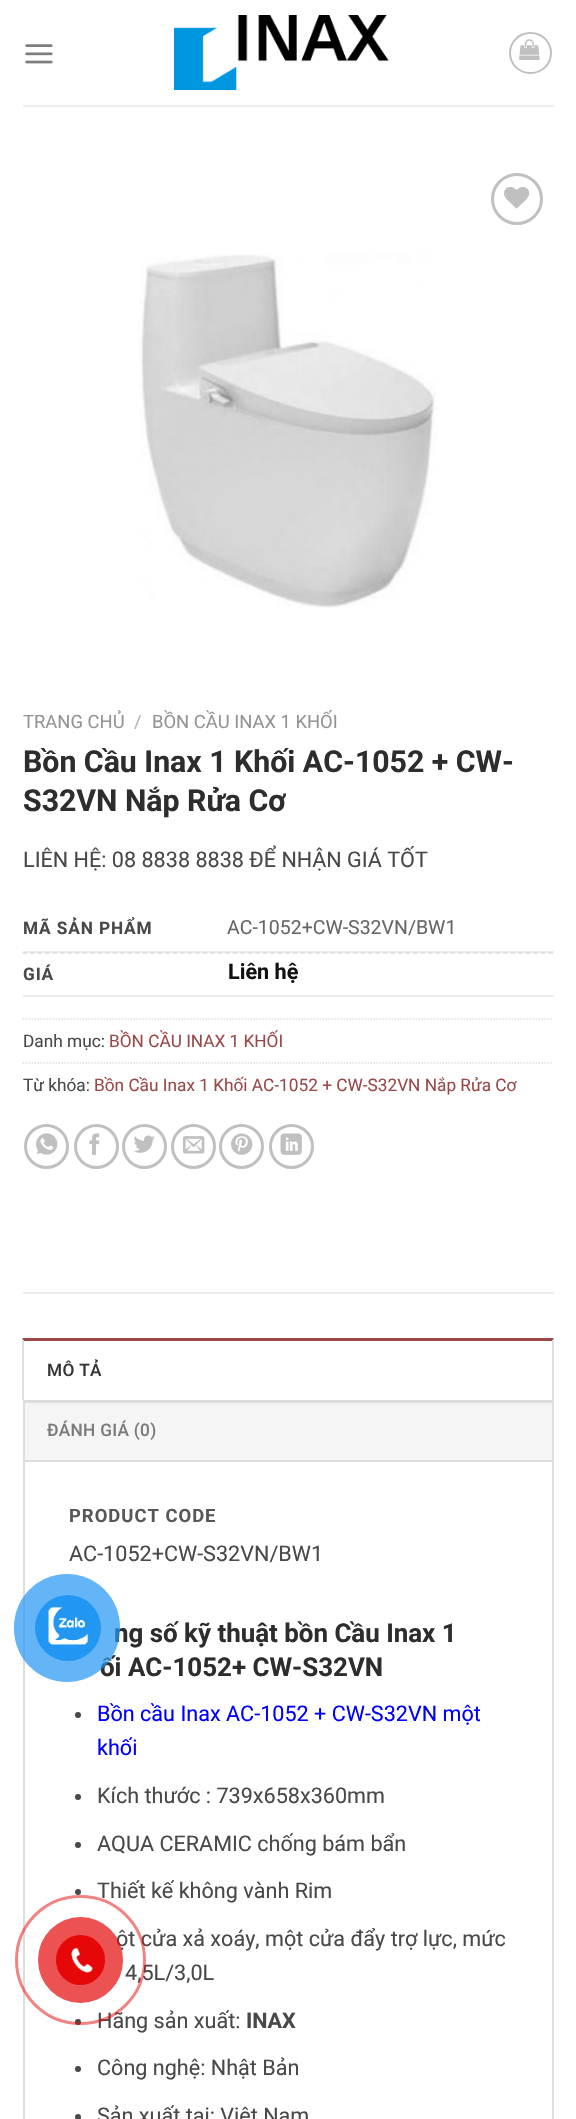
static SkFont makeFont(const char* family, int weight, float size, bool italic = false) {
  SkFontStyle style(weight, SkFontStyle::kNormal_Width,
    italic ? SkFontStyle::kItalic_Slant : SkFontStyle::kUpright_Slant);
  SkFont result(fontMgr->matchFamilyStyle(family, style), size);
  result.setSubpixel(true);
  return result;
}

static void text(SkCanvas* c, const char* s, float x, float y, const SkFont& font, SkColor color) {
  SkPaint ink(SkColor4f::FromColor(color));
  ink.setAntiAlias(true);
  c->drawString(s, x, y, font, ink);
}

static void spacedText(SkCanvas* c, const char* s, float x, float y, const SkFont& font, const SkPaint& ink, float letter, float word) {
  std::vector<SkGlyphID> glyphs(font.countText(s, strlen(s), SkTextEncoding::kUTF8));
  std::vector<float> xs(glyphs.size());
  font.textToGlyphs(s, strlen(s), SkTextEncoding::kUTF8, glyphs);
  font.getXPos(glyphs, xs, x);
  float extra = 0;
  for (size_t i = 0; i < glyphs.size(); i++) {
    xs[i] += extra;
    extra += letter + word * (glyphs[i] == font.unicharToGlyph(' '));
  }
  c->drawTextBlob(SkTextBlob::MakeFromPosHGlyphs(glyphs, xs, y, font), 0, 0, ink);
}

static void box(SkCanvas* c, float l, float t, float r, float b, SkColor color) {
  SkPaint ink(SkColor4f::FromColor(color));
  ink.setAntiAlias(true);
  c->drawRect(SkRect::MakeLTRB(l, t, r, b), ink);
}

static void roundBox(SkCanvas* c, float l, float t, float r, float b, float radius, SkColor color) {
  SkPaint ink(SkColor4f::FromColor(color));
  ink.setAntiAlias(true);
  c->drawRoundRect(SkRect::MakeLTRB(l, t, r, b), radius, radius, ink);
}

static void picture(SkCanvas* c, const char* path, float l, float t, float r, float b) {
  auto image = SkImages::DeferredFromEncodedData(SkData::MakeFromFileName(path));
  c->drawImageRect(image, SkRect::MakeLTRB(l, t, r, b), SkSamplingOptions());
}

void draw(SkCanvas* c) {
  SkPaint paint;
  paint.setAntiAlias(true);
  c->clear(0xffffffff);
  picture(c, "img_01.png", 25, 44, 53, 64);
  picture(c, "img_02.png", 174, 15, 389, 90);
  paint.setStyle(SkPaint::kStroke_Style);
  paint.setStrokeWidth(2);
  paint.setColor(0xffc0c0c0);
  c->drawRoundRect(SkRect::MakeLTRB(510, 33, 551, 73), 20, 20, paint);
  picture(c, "img_03.png", 519, 39, 540, 60);
  box(c, 23, 105, 554, 107, 0xffededed);
  paint.setStrokeWidth(3);
  c->drawCircle(517, 199, 24.5f, paint);
  picture(c, "img_04.png", 504, 187, 530, 209);
  picture(c, "img_05.png", 139, 254, 439, 608);
  SkFont face1 = makeFont("Roboto", 400, 18.4f);
  text(c, "TRANG CHỦ", 23, 728, face1, 0xff949494);
  text(c, "/", 134, 728, face1, 0xffb2b2b2);
  text(c, "BỒN CẦU INAX 1 KHỐI", 152, 728, face1, 0xff949494);
  SkFont face2 = makeFont("Roboto", 700, 30.25f);
  text(c, "Bồn Cầu Inax 1 Khối AC-1052 + CW-", 23, 772, face2, 0xff2d2d2d);
  text(c, "S32VN Nắp Rửa Cơ", 23, 811, face2, 0xff2d2d2d);
  SkFont face3 = makeFont("Roboto", 400, 21.6f);
  text(c, "LIÊN HỆ: 08 8838 8838 ĐỂ NHẬN GIÁ TỐT", 23, 867, face3, 0xff494949);
  box(c, 23, 951, 554, 953, 0xffececec);
  SkFont face4 = makeFont("Roboto", 700, 17.25f);
  paint.setStyle(SkPaint::kFill_Style);
  paint.setColor(0xff494949);
  spacedText(c, "MÃ SẢN PHẨM", 23, 934, face4, paint, 0.9f, 0);
  SkFont face5 = makeFont("Roboto", 400, 19.5f);
  text(c, "AC-1052+CW-S32VN/BW1", 227, 934, face5, 0xff666666);
  paint.setStyle(SkPaint::kStroke_Style);
  paint.setStrokeWidth(1.5f);
  paint.setColor(0xffdddddd);
  paint.setPathEffect(SkDashPathEffect::Make({{4.5f, 3.01f}}, 0));
  c->drawPath(SkPathBuilder().moveTo(22.5f, 953).lineTo(553.5f, 953).detach(), paint);
  paint.setPathEffect(nullptr);
  box(c, 23, 995, 554, 997, 0xffececec);
  paint.setStyle(SkPaint::kFill_Style);
  paint.setColor(0xff494949);
  spacedText(c, "GIÁ", 23, 980, face4, paint, 0.9f, 0);
  SkFont face6 = makeFont("Roboto", 700, 21.6f);
  text(c, "Liên hệ", 228, 979, face6, 0xff111111);
  paint.setStyle(SkPaint::kStroke_Style);
  paint.setColor(0xffdddddd);
  paint.setPathEffect(SkDashPathEffect::Make({{1.5f, 1.5f}}, 0));
  c->drawPath(SkPathBuilder().moveTo(22.5f, 1019).lineTo(553.5f, 1019).detach(), paint);
  paint.setPathEffect(nullptr);
  SkFont face7 = makeFont("Roboto", 400, 17.25f);
  text(c, "Danh mục:", 23, 1047, face7, 0xff494949);
  text(c, "BỒN CẦU INAX 1 KHỐI", 109, 1047, face7, 0xff9a4948);
  paint.setPathEffect(SkDashPathEffect::Make({{1.5f, 1.5f}}, 0));
  c->drawPath(SkPathBuilder().moveTo(22.5f, 1063).lineTo(553.5f, 1063).detach(), paint);
  paint.setPathEffect(nullptr);
  text(c, "Từ khóa:", 23, 1091, face7, 0xff494949);
  text(c, "Bồn Cầu Inax 1 Khối AC-1052 + CW-S32VN Nắp Rửa Cơ", 94, 1091, face7, 0xff9a4948);
  paint.setStrokeWidth(3);
  paint.setColor(0xffc0c0c0);
  c->drawCircle(46.5f, 1146.5f, 21, paint);
  picture(c, "img_06.png", 36, 1133, 58, 1155);
  c->drawCircle(96.5f, 1146.5f, 21, paint);
  picture(c, "img_07.png", 89, 1133, 100, 1155);
  c->drawCircle(144.5f, 1146.5f, 21, paint);
  picture(c, "img_08.png", 134, 1135, 155, 1153);
  c->drawCircle(193.5f, 1146.5f, 21, paint);
  picture(c, "img_09.png", 183, 1136, 205, 1154);
  c->drawCircle(241.5f, 1146.5f, 21, paint);
  picture(c, "img_10.png", 231, 1133, 253, 1155);
  c->drawCircle(291.5f, 1146.5f, 21, paint);
  picture(c, "img_11.png", 280, 1133, 302, 1155);
  box(c, 23, 1292, 554, 1294, 0xffececec);
  paint.setStyle(SkPaint::kFill_Style);
  paint.setColor(0xff9a4948);
  c->drawPath(SkPathBuilder().moveTo(22, 1338).lineTo(554, 1338).lineTo(552, 1341).lineTo(24, 1341).close().detach(), paint);
  paint.setColor(0xffdddddd);
  c->drawPath(SkPathBuilder().moveTo(554, 1338).lineTo(554, 1400).lineTo(552, 1400).lineTo(552, 1341).close().detach(), paint);
  c->drawPath(SkPathBuilder().moveTo(22, 1400).lineTo(22, 1338).lineTo(24, 1341).lineTo(24, 1400).close().detach(), paint);
  SkFont face8 = makeFont("Roboto", 500, 17.25f);
  paint.setColor(0xff353535);
  spacedText(c, "MÔ TẢ", 47, 1376, face8, paint, 0.3f, 0);
  box(c, 25, 1403, 552, 1460, 0xfff5f5f5);
  box(c, 23, 1400, 554, 1403, 0xffdddddd);
  box(c, 552, 1400, 554, 1460, 0xffdddddd);
  box(c, 23, 1400, 25, 1460, 0xffdddddd);
  paint.setColor(0xff7b7b7b);
  spacedText(c, "ĐÁNH GIÁ (0)", 47, 1436, face8, paint, 0.3f, 0);
  paint.setStyle(SkPaint::kStroke_Style);
  paint.setStrokeWidth(2);
  paint.setColor(0xffdddddd);
  c->drawRect(SkRect::MakeLTRB(24, 1461, 553, 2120), paint);
  SkFont face9 = makeFont("Roboto", 700, 18.4f);
  paint.setStyle(SkPaint::kFill_Style);
  paint.setColor(0xff575757);
  spacedText(c, "PRODUCT CODE", 69, 1522, face9, paint, 1, 0);
  text(c, "AC-1052+CW-S32VN/BW1", 69, 1561, face3, 0xff494949);
  SkFont face10 = makeFont("Roboto", 700, 25.9f);
  text(c, "ng số kỹ thuật bồn Cầu Inax 1", 114, 1642, face10, 0xff2d2d2d);
  text(c, "ối AC-1052+ CW-S32VN", 100, 1676, face10, 0xff2d2d2d);
  paint.setColor(0xff494949);
  c->drawCircle(78, 1715, 3, paint);
  text(c, "Bồn cầu Inax AC-1052 + CW-S32VN một", 97, 1721, face3, 0xff0000ff);
  text(c, "khối", 97, 1755, face3, 0xff0000ff);
  c->drawCircle(78, 1797, 3, paint);
  text(c, "Kích thước : 739x658x360mm", 97, 1803, face3, 0xff494949);
  c->drawCircle(78, 1845, 3, paint);
  text(c, "AQUA CERAMIC chống bám bẩn", 97, 1851, face3, 0xff494949);
  c->drawCircle(78, 1892, 3, paint);
  text(c, "Thiết kế không vành Rim", 97, 1898, face3, 0xff494949);
  text(c, "ột cửa xả xoáy, một cửa đẩy trợ lực, mức", 116, 1946, face3, 0xff494949);
  text(c, "4,5L/3,0L", 125, 1980, face3, 0xff494949);
  c->drawCircle(78, 2022, 3, paint);
  text(c, "Hãng sản xuất:", 97, 2028, face3, 0xff494949);
  text(c, "INAX", 246, 2028, face6, 0xff494949);
  c->drawCircle(78, 2069, 3, paint);
  text(c, "Công nghệ: Nhật Bản", 97, 2075, face3, 0xff494949);
  c->drawCircle(78, 2117, 3, paint);
  text(c, "Sản xuất tại: Việt Nam", 97, 2123, face3, 0xff494949);
  roundBox(c, 14, 1574, 120, 1682, 53, 0xb32196f3);
  paint.setColor(0xff2196f3);
  c->drawCircle(68, 1628, 33, paint);
  picture(c, "img_12.png", 48, 1607, 89, 1645);
  paint.setStyle(SkPaint::kStroke_Style);
  paint.setStrokeWidth(3);
  paint.setColor(0x80e60808);
  c->drawRoundRect(SkRect::MakeLTRB(16.5f, 1896.5f, 144.5f, 2023.5f), 63.5f, 63.5f, paint);
  roundBox(c, 38, 1917, 123, 2003, 42.5f, 0xb3e60808);
  roundBox(c, 56, 1935, 105, 1985, 24.5f, 0xffe60808);
  picture(c, "img_13.png", 71, 1947, 93, 1973);
}
